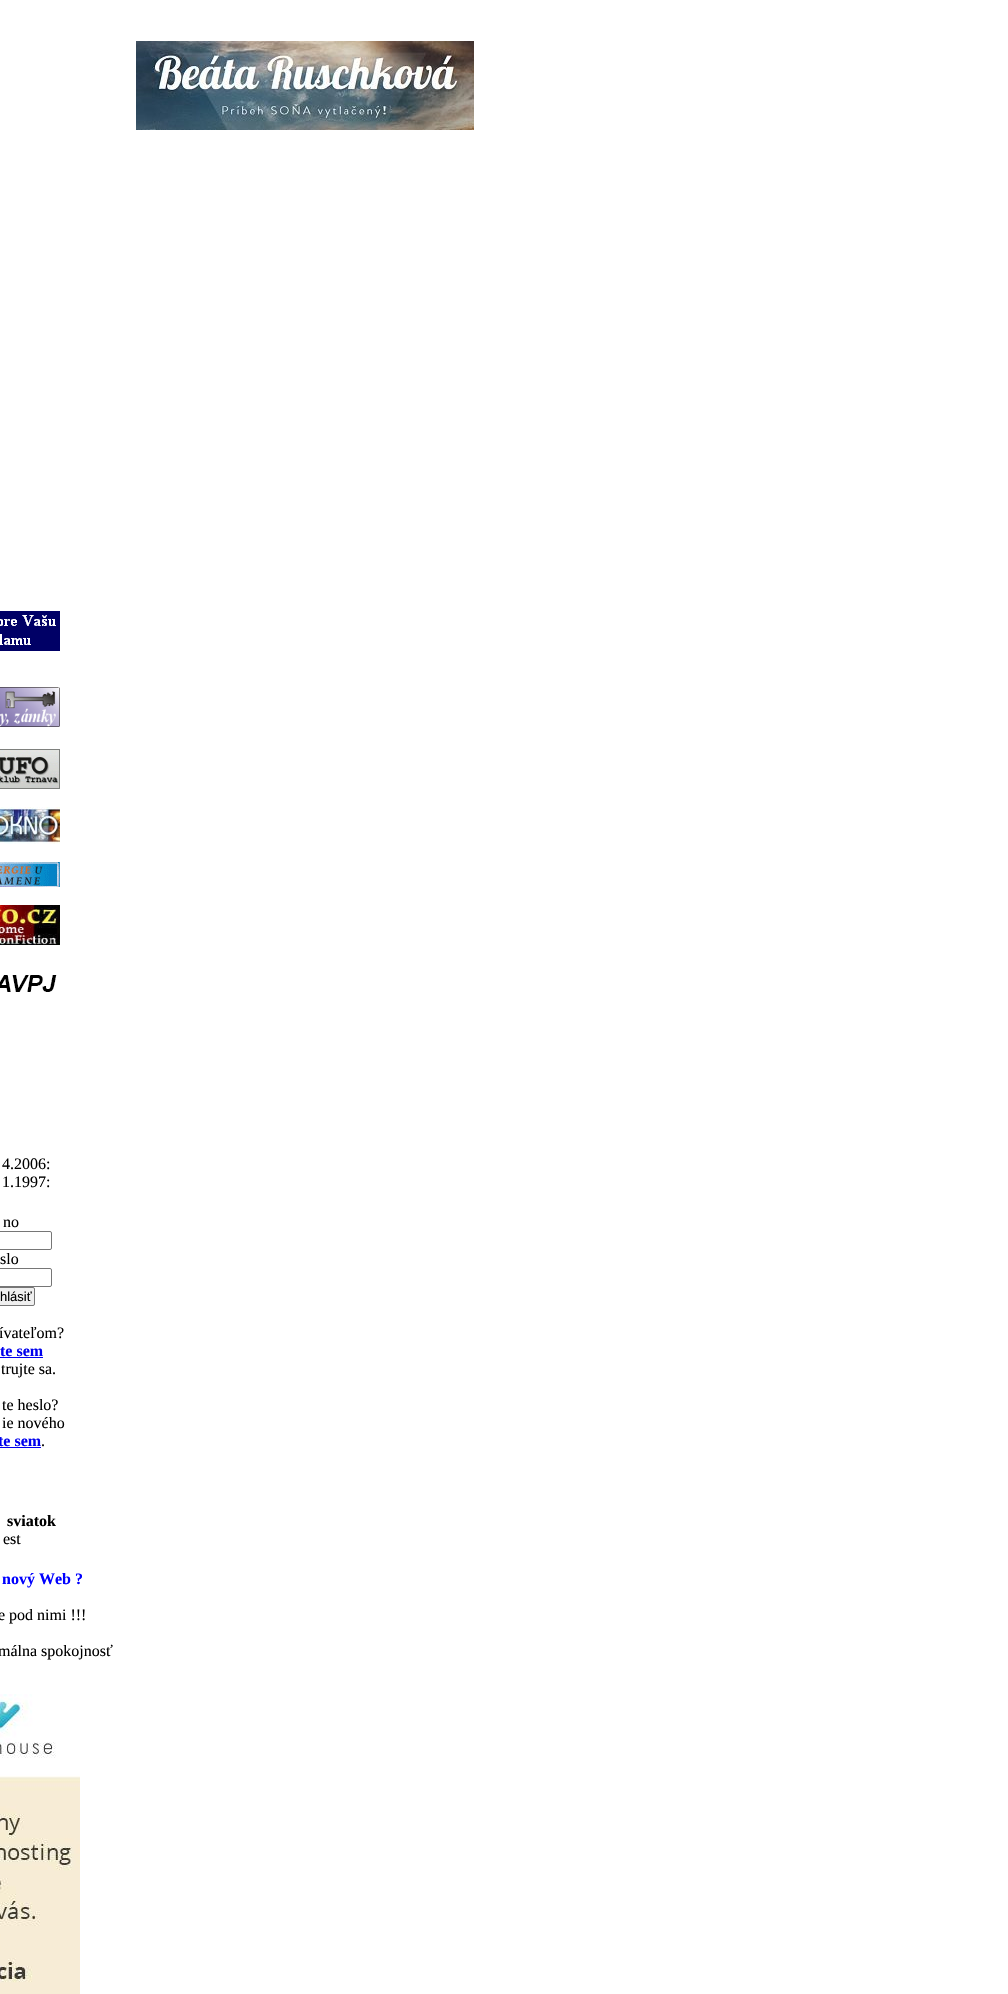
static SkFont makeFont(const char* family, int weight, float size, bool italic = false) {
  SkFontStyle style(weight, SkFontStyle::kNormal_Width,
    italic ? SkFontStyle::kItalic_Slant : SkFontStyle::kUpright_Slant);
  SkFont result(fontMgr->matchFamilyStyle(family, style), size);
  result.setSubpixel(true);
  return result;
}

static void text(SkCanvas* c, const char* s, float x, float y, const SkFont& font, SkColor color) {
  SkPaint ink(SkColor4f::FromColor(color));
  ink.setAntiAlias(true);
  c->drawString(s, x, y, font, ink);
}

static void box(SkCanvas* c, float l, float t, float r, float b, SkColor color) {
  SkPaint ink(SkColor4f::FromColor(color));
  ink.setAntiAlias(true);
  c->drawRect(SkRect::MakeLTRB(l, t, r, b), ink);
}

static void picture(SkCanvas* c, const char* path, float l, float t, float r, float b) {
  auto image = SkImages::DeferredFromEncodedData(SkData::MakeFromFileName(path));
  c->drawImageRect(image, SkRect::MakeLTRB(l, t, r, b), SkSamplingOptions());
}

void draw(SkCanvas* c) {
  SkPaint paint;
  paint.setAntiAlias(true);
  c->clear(0xffffffff);
  picture(c, "img_01.png", 136, 41, 474, 130);
  picture(c, "img_02.png", 0, 611, 60, 651);
  picture(c, "img_03.png", 0, 687, 60, 727);
  picture(c, "img_04.png", 0, 749, 60, 789);
  picture(c, "img_05.png", 0, 807, 60, 844);
  picture(c, "img_06.png", 0, 862, 60, 887);
  picture(c, "img_07.png", 0, 905, 60, 945);
  picture(c, "img_08.png", 0, 975, 57, 992);
  SkFont face1 = makeFont("Liberation Serif", 400, 16);
  text(c, "4.2006:", 2, 1169, face1, 0xff000000);
  text(c, "1.1997:", 2, 1187, face1, 0xff000000);
  text(c, "no", 3, 1227, face1, 0xff000000);
  paint.setStyle(SkPaint::kStroke_Style);
  paint.setStrokeWidth(1);
  paint.setColor(0xff767676);
  c->drawRoundRect(SkRect::MakeLTRB(-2.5f, 1231.5f, 51.5f, 1249.5f), 1.5f, 1.5f, paint);
  text(c, "slo", 0, 1264, face1, 0xff000000);
  c->drawRoundRect(SkRect::MakeLTRB(-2.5f, 1268.5f, 51.5f, 1286.5f), 1.5f, 1.5f, paint);
  paint.setStyle(SkPaint::kFill_Style);
  paint.setColor(0xffefefef);
  c->drawRoundRect(SkRect::MakeLTRB(-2.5f, 1287.5f, 34.5f, 1305.5f), 1.5f, 1.5f, paint);
  paint.setStyle(SkPaint::kStroke_Style);
  paint.setColor(0xff767676);
  c->drawRoundRect(SkRect::MakeLTRB(-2.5f, 1287.5f, 34.5f, 1305.5f), 1.5f, 1.5f, paint);
  SkFont face2 = makeFont("Liberation Sans", 400, 13);
  text(c, "hlásiť", 0, 1301, face2, 0xff000000);
  text(c, "ívateľom?", -1, 1338, face1, 0xff000000);
  SkFont face3 = makeFont("Liberation Serif", 700, 16);
  text(c, "te sem", 0, 1356, face3, 0xff0000ee);
  box(c, 0, 1357, 43, 1358, 0xff0000ee);
  text(c, "trujte sa.", 1, 1374, face1, 0xff000000);
  text(c, "te heslo?", 2, 1410, face1, 0xff000000);
  text(c, "ie nového", 2, 1428, face1, 0xff000000);
  text(c, "te sem", -2, 1446, face3, 0xff0000ee);
  box(c, 0, 1447, 41, 1448, 0xff0000ee);
  text(c, ".", 41, 1446, face1, 0xff000000);
  text(c, "sviatok", 7, 1526, face3, 0xff000000);
  text(c, "est", 3, 1544, face1, 0xff000000);
  text(c, "nový Web ?", 2, 1584, face3, 0xff0000ff);
  text(c, "e pod nimi !!!", -2, 1620, face1, 0xff000000);
  text(c, "málna spokojnosť", -2, 1656, face1, 0xff000000);
  picture(c, "img_09.png", 0, 1694, 80, 1994);
}
